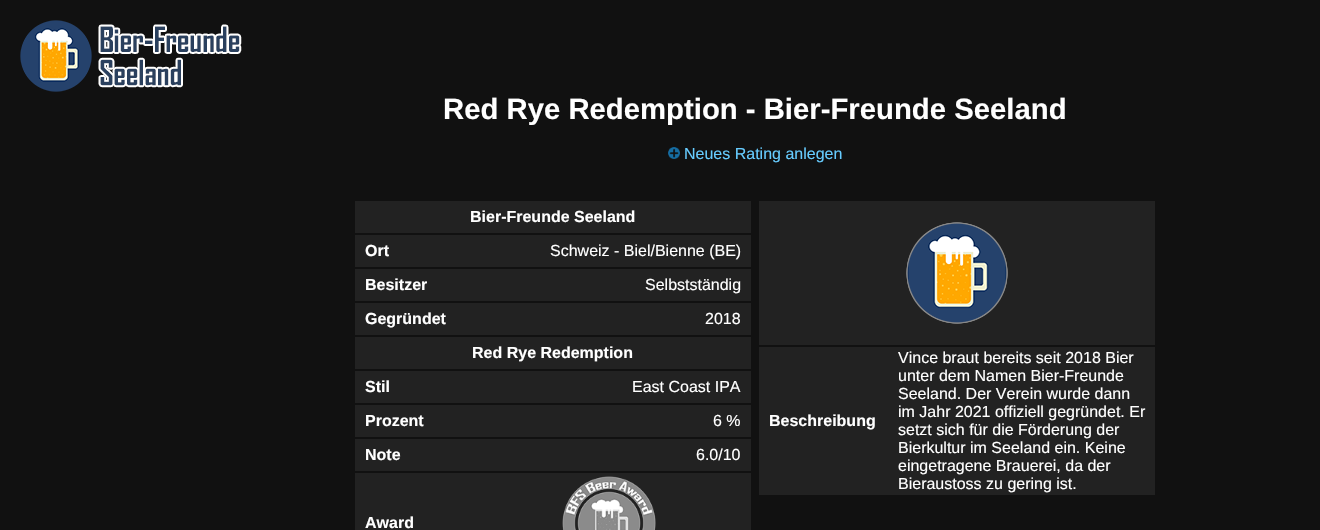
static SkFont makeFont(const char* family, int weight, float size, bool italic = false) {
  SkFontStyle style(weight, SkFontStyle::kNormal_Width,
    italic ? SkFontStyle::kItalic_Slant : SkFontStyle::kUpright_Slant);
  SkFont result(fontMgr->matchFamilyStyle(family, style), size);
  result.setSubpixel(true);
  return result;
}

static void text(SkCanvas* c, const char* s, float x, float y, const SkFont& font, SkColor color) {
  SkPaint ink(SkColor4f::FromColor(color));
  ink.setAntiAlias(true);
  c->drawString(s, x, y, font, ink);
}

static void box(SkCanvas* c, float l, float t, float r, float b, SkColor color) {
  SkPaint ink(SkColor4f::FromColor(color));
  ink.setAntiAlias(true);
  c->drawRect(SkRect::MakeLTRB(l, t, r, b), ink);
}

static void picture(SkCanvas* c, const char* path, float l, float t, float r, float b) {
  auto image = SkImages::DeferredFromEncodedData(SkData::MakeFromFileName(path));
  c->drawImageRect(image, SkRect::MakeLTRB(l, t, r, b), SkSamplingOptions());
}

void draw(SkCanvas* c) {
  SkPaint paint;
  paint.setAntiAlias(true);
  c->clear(0xff111111);
  picture(c, "img_01.png", 20, 20, 242, 92);
  SkFont face1 = makeFont("Liberation Sans", 700, 29.3f);
  text(c, "Red Rye Redemption - Bier-Freunde Seeland", 443, 119, face1, 0xffffffff);
  picture(c, "img_02.png", 668, 147, 680, 159);
  SkFont face2 = makeFont("Liberation Sans", 400, 16);
  text(c, "Neues Rating anlegen", 684, 159, face2, 0xff66ccff);
  box(c, 355, 201, 751, 233, 0xff222222);
  SkFont face3 = makeFont("Liberation Sans", 700, 16);
  text(c, "Bier-Freunde Seeland", 470, 222, face3, 0xffffffff);
  box(c, 355, 235, 751, 267, 0xff222222);
  text(c, "Ort", 365, 256, face3, 0xffffffff);
  text(c, "Schweiz - Biel/Bienne (BE)", 550, 256, face2, 0xffffffff);
  box(c, 355, 269, 751, 301, 0xff222222);
  text(c, "Besitzer", 365, 290, face3, 0xffffffff);
  text(c, "Selbstständig", 645, 290, face2, 0xffffffff);
  box(c, 355, 303, 751, 335, 0xff222222);
  text(c, "Gegründet", 365, 324, face3, 0xffffffff);
  text(c, "2018", 705, 324, face2, 0xffffffff);
  box(c, 355, 337, 751, 369, 0xff222222);
  text(c, "Red Rye Redemption", 472, 358, face3, 0xffffffff);
  box(c, 355, 371, 751, 403, 0xff222222);
  text(c, "Stil", 365, 392, face3, 0xffffffff);
  text(c, "East Coast IPA", 632, 392, face2, 0xffffffff);
  box(c, 355, 405, 751, 437, 0xff222222);
  text(c, "Prozent", 365, 426, face3, 0xffffffff);
  text(c, "6 %", 713, 426, face2, 0xffffffff);
  box(c, 355, 439, 751, 471, 0xff222222);
  text(c, "Note", 365, 460, face3, 0xffffffff);
  text(c, "6.0/10", 696, 460, face2, 0xffffffff);
  box(c, 355, 473, 751, 530, 0xff222222);
  text(c, "Award", 365, 528, face3, 0xffffffff);
  picture(c, "img_03.png", 562, 476, 656, 530);
  box(c, 759, 201, 1155, 345, 0xff222222);
  picture(c, "img_04.png", 906, 222, 1008, 324);
  box(c, 759, 347, 1155, 495, 0xff222222);
  text(c, "Beschreibung", 769, 426, face3, 0xffffffff);
  text(c, "Vince braut bereits seit 2018 Bier", 898, 363, face2, 0xffffffff);
  text(c, "unter dem Namen Bier-Freunde", 898, 381, face2, 0xffffffff);
  text(c, "Seeland. Der Verein wurde dann", 898, 399, face2, 0xffffffff);
  text(c, "im Jahr 2021 offiziell gegründet. Er", 898, 417, face2, 0xffffffff);
  text(c, "setzt sich für die Förderung der", 898, 435, face2, 0xffffffff);
  text(c, "Bierkultur im Seeland ein. Keine", 898, 453, face2, 0xffffffff);
  text(c, "eingetragene Brauerei, da der", 898, 471, face2, 0xffffffff);
  text(c, "Bieraustoss zu gering ist.", 898, 489, face2, 0xffffffff);
}
